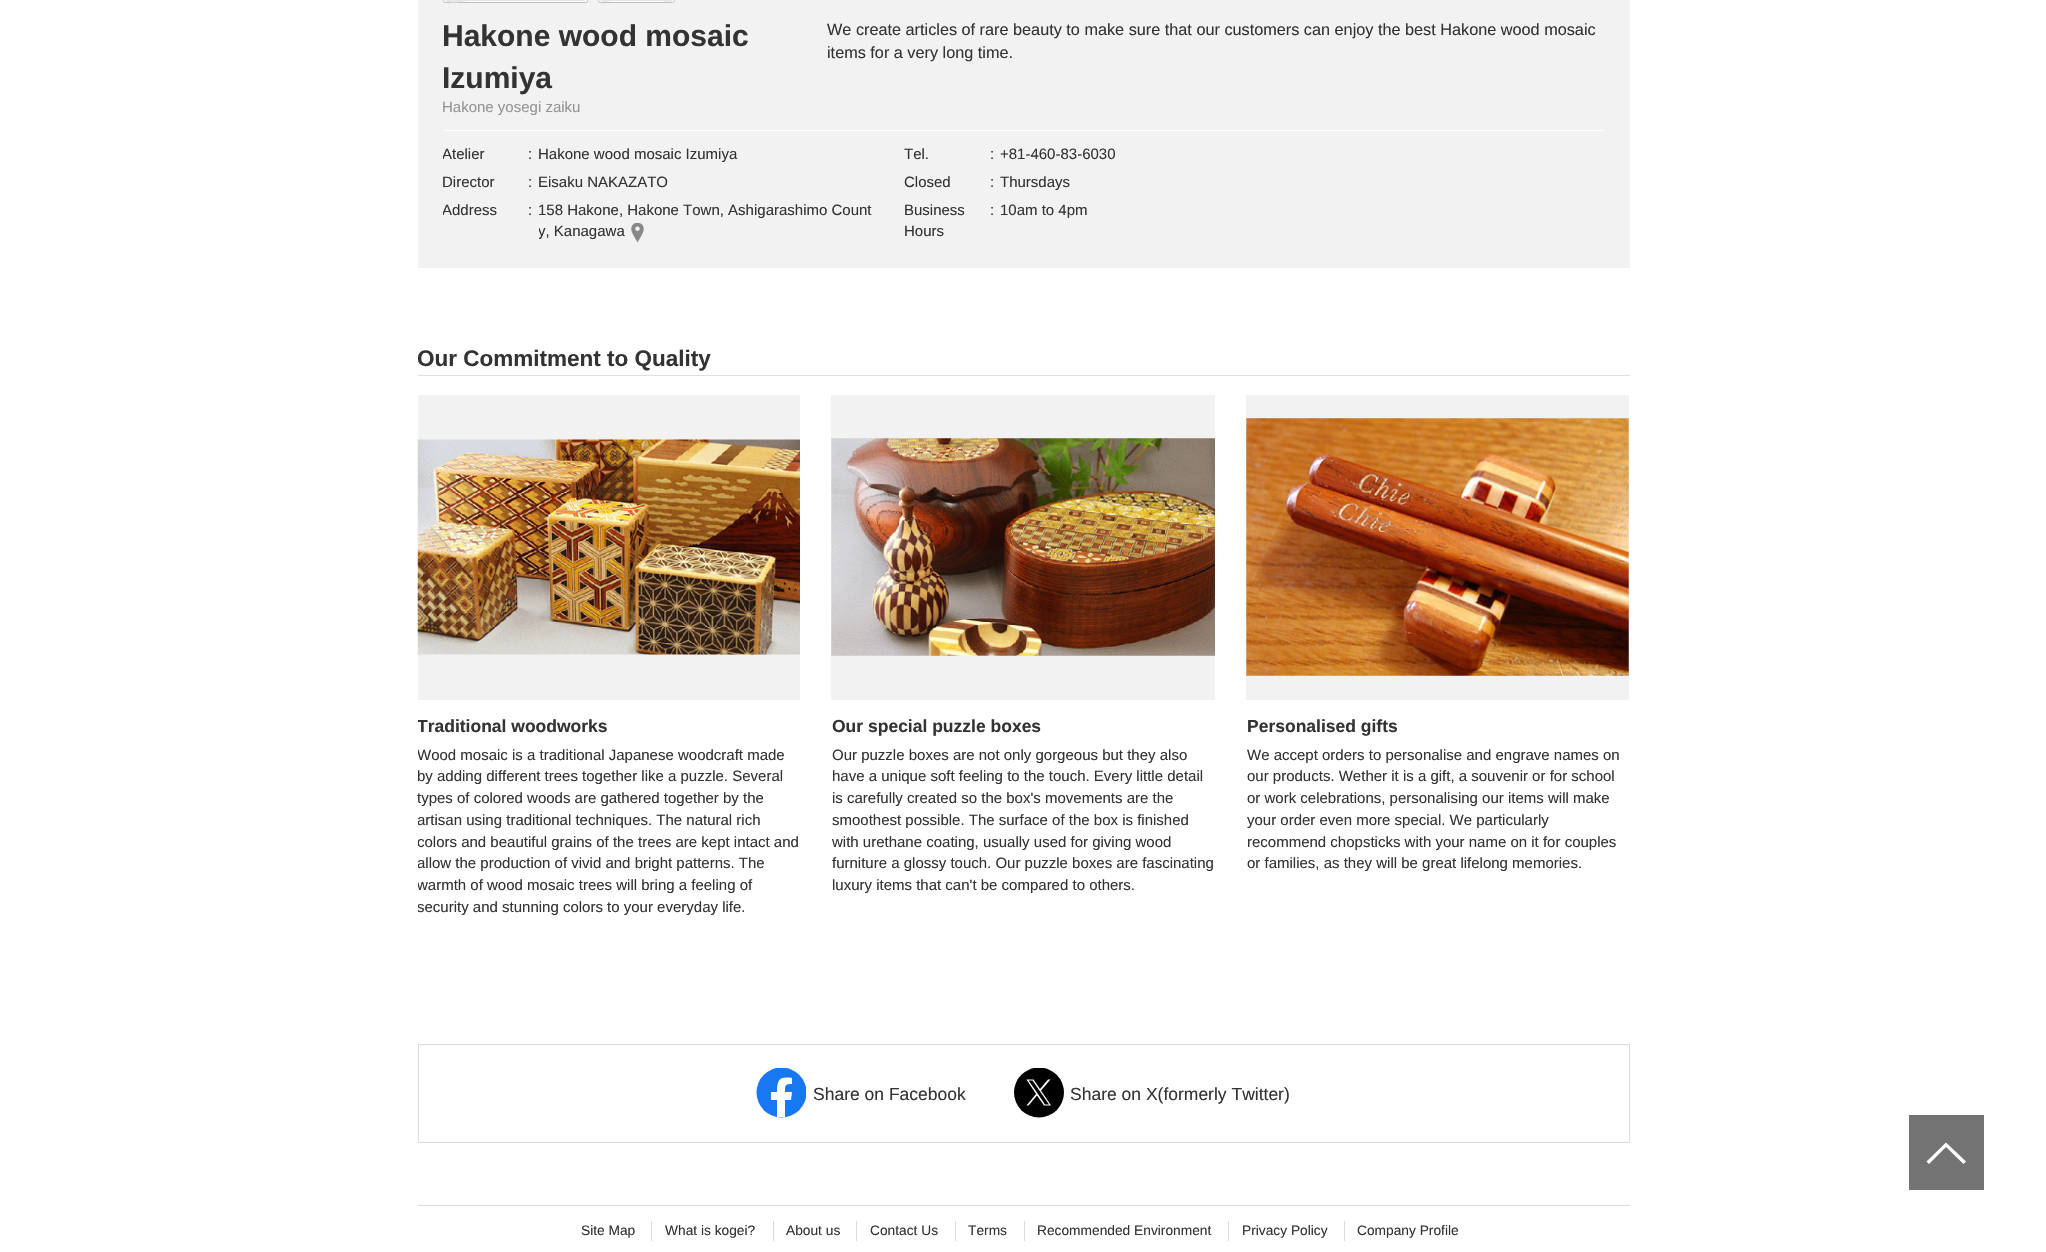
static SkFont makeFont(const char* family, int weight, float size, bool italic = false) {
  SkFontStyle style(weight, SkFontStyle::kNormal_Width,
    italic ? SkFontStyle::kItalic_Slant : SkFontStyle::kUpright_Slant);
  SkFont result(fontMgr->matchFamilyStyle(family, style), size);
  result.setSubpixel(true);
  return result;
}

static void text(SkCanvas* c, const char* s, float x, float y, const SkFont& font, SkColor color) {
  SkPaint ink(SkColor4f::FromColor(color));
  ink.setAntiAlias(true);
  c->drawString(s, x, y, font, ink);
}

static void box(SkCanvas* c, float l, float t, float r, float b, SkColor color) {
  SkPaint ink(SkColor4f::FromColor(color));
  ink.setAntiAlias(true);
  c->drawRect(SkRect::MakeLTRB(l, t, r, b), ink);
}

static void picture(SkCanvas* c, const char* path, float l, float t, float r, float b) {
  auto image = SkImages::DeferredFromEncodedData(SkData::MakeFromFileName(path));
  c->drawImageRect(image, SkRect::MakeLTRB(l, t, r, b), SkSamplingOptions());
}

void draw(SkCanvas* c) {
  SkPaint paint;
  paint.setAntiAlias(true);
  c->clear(0xffffffff);
  box(c, 418, 0, 1630, 268, 0xfff2f2f2);
  paint.setColor(0xffffffff);
  c->drawRoundRect(SkRect::MakeLTRB(443.5f, -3.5f, 587.5f, 2.5f), 2, 2, paint);
  paint.setStyle(SkPaint::kStroke_Style);
  paint.setStrokeWidth(1);
  paint.setColor(0xffbfbfbf);
  c->drawRoundRect(SkRect::MakeLTRB(443.5f, -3.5f, 587.5f, 2.5f), 2, 2, paint);
  paint.setStyle(SkPaint::kFill_Style);
  paint.setColor(0xffe6e6e6);
  c->drawPath(SkPathBuilder().moveTo(444, -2).cubicTo(444, 6, 467, 1, 469, 1).lineTo(584, 1).lineTo(585, 0).lineTo(586, -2).cubicTo(586, -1, 585, 0, 584, 0).lineTo(446, 0).cubicTo(445, 0, 444, -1, 444, -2).close().detach(), paint);
  paint.setColor(0xffffffff);
  c->drawRoundRect(SkRect::MakeLTRB(598.5f, -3.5f, 674.5f, 2.5f), 2, 2, paint);
  paint.setStyle(SkPaint::kStroke_Style);
  paint.setColor(0xffbfbfbf);
  c->drawRoundRect(SkRect::MakeLTRB(598.5f, -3.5f, 674.5f, 2.5f), 2, 2, paint);
  paint.setStyle(SkPaint::kFill_Style);
  paint.setColor(0xffe6e6e6);
  c->drawPath(SkPathBuilder().moveTo(599, -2).cubicTo(599, 4, 612, 1, 613, 1).lineTo(660, 1).cubicTo(661, 1, 674, 4, 674, -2).cubicTo(674, -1, 673, 0, 671, 0).lineTo(601, 0).cubicTo(600, 0, 599, -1, 599, -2).close().detach(), paint);
  SkFont face1 = makeFont("Liberation Sans", 700, 30);
  text(c, "Hakone wood mosaic", 442, 46, face1, 0xff333333);
  text(c, "Izumiya", 442, 88, face1, 0xff333333);
  SkFont face2 = makeFont("Liberation Sans", 400, 15);
  text(c, "Hakone yosegi zaiku", 442, 112, face2, 0xff949494);
  SkFont face3 = makeFont("Liberation Sans", 400, 16.25f);
  text(c, "We create articles of rare beauty to make sure that our customers can enjoy the best Hakone wood mosaic", 827, 35, face3, 0xff333333);
  text(c, "items for a very long time.", 827, 58, face3, 0xff333333);
  box(c, 443, 130, 1605, 131, 0xffffffff);
  c->save();
  c->clipRect(SkRect::MakeLTRB(443, 144, 539, 165));
  text(c, "Atelier", 442, 159, face2, 0xff333333);
  c->restore();
  text(c, ":", 528, 159, face2, 0xff333333);
  text(c, "Hakone wood mosaic Izumiya", 538, 159, face2, 0xff333333);
  text(c, "Director", 442, 187, face2, 0xff333333);
  text(c, ":", 528, 187, face2, 0xff333333);
  text(c, "Eisaku NAKAZATO", 538, 187, face2, 0xff333333);
  c->save();
  c->clipRect(SkRect::MakeLTRB(443, 200, 539, 221));
  text(c, "Address", 442, 215, face2, 0xff333333);
  c->restore();
  text(c, ":", 528, 215, face2, 0xff333333);
  text(c, "158 Hakone, Hakone Town, Ashigarashimo Count", 538, 215, face2, 0xff333333);
  c->save();
  c->clipRect(SkRect::MakeLTRB(539, 200, 880, 243));
  text(c, "y, Kanagawa", 538, 236, face2, 0xff333333);
  c->restore();
  picture(c, "img_01.png", 631, 223, 644, 243);
  text(c, "Tel.", 904, 159, face2, 0xff333333);
  text(c, ":", 990, 159, face2, 0xff333333);
  text(c, "+81-460-83-6030", 1000, 159, face2, 0xff333333);
  text(c, "Closed", 904, 187, face2, 0xff333333);
  text(c, ":", 990, 187, face2, 0xff333333);
  text(c, "Thursdays", 1000, 187, face2, 0xff333333);
  text(c, "Business", 904, 215, face2, 0xff333333);
  text(c, ":", 990, 215, face2, 0xff333333);
  text(c, "Hours", 904, 236, face2, 0xff333333);
  text(c, "10am to 4pm", 1000, 215, face2, 0xff333333);
  box(c, 418, 375, 1630, 376, 0xffe0e0e0);
  SkFont face4 = makeFont("Liberation Sans", 700, 22.5f);
  text(c, "Our Commitment to Quality", 417, 366, face4, 0xff333333);
  box(c, 418, 395, 800, 700, 0xfff2f2f2);
  picture(c, "img_02.png", 417, 439, 800, 655);
  c->save();
  c->clipRect(SkRect::MakeLTRB(418, 383, 1630, 919));
  SkFont face5 = makeFont("Liberation Sans", 700, 17.5f);
  text(c, "Traditional woodworks", 417, 732, face5, 0xff333333);
  text(c, "Wood mosaic is a traditional Japanese woodcraft made", 417, 760, face2, 0xff333333);
  text(c, "by adding different trees together like a puzzle. Several", 417, 781, face2, 0xff333333);
  c->restore();
  text(c, "types of colored woods are gathered together by the", 417, 803, face2, 0xff333333);
  c->save();
  c->clipRect(SkRect::MakeLTRB(418, 383, 1630, 919));
  text(c, "artisan using traditional techniques. The natural rich", 417, 825, face2, 0xff333333);
  text(c, "colors and beautiful grains of the trees are kept intact and", 417, 847, face2, 0xff333333);
  text(c, "allow the production of vivid and bright patterns. The", 417, 868, face2, 0xff333333);
  text(c, "warmth of wood mosaic trees will bring a feeling of", 417, 890, face2, 0xff333333);
  text(c, "security and stunning colors to your everyday life.", 417, 912, face2, 0xff333333);
  c->restore();
  box(c, 831, 395, 1215, 700, 0xfff2f2f2);
  picture(c, "img_03.png", 831, 438, 1215, 656);
  text(c, "Our special puzzle boxes", 832, 732, face5, 0xff333333);
  text(c, "Our puzzle boxes are not only gorgeous but they also", 832, 760, face2, 0xff333333);
  text(c, "have a unique soft feeling to the touch. Every little detail", 832, 781, face2, 0xff333333);
  text(c, "is carefully created so the box's movements are the", 832, 803, face2, 0xff333333);
  text(c, "smoothest possible. The surface of the box is finished", 832, 825, face2, 0xff333333);
  text(c, "with urethane coating, usually used for giving wood", 832, 847, face2, 0xff333333);
  text(c, "furniture a glossy touch. Our puzzle boxes are fascinating", 832, 868, face2, 0xff333333);
  text(c, "luxury items that can't be compared to others.", 832, 890, face2, 0xff333333);
  box(c, 1246, 395, 1629, 700, 0xfff2f2f2);
  picture(c, "img_04.png", 1246, 418, 1629, 676);
  text(c, "Personalised gifts", 1247, 732, face5, 0xff333333);
  text(c, "We accept orders to personalise and engrave names on", 1247, 760, face2, 0xff333333);
  text(c, "our products. Wether it is a gift, a souvenir or for school", 1247, 781, face2, 0xff333333);
  text(c, "or work celebrations, personalising our items will make", 1247, 803, face2, 0xff333333);
  text(c, "your order even more special. We particularly", 1247, 825, face2, 0xff333333);
  text(c, "recommend chopsticks with your name on it for couples", 1247, 847, face2, 0xff333333);
  text(c, "or families, as they will be great lifelong memories.", 1247, 868, face2, 0xff333333);
  paint.setStyle(SkPaint::kStroke_Style);
  paint.setColor(0xffd9d9d9);
  c->drawRect(SkRect::MakeLTRB(418.5f, 1044.5f, 1629.5f, 1142.5f), paint);
  c->save();
  c->clipRect(SkRect::MakeLTRB(756, 1068, 806, 1118));
  paint.setStyle(SkPaint::kFill_Style);
  paint.setColor(0xff1877f2);
  c->drawCircle(781.5f, 1092.5f, 25, paint);
  c->restore();
  paint.setColor(0xffffffff);
  c->drawPath(SkPathBuilder().moveTo(791, 1100).lineTo(792, 1092).lineTo(785, 1092).cubicTo(785, 1085, 785, 1084, 792, 1084).lineTo(792, 1078).cubicTo(779, 1076, 777, 1080, 777, 1092).lineTo(771, 1092).lineTo(771, 1100).lineTo(777, 1100).lineTo(777, 1117).lineTo(785, 1117).lineTo(785, 1100).close().detach(), paint);
  SkFont face6 = makeFont("Liberation Sans", 400, 17.5f);
  text(c, "Share on Facebook", 813, 1100, face6, 0xff333333);
  c->save();
  c->clipRect(SkRect::MakeLTRB(1014, 1068, 1064, 1118));
  paint.setColor(0xff000000);
  c->drawCircle(1039, 1092.5f, 25, paint);
  c->restore();
  paint.setColor(0xffffffff);
  c->drawPath(SkPathBuilder().moveTo(1041, 1090.5f).lineTo(1050.5f, 1079.5f).lineTo(1048, 1079.5f).lineTo(1040, 1089).lineTo(1033.5f, 1079.5f).lineTo(1026.5f, 1079.5f).lineTo(1036, 1094).lineTo(1026.5f, 1105.5f).lineTo(1028.5f, 1105.5f).lineTo(1037, 1095.5f).lineTo(1044, 1105.5f).lineTo(1051, 1105.5f).close().moveTo(1038, 1094).lineTo(1028.5f, 1080.5f).lineTo(1032.5f, 1080.5f).lineTo(1049, 1104.5f).lineTo(1045, 1104.5f).close().detach(), paint);
  text(c, "Share on X(formerly Twitter)", 1070, 1100, face6, 0xff333333);
  box(c, 1909, 1115, 1984, 1190, 0xff737373);
  c->drawPath(SkPathBuilder().moveTo(1963.5f, 1164).lineTo(1946, 1147).lineTo(1929, 1164).lineTo(1926.5f, 1161.5f).lineTo(1946, 1142.5f).lineTo(1966, 1161.5f).close().detach(), paint);
  box(c, 418, 1205, 1630, 1206, 0xffdcdcdc);
  SkFont face7 = makeFont("Liberation Sans", 400, 13.75f);
  text(c, "Site Map", 581, 1235, face7, 0xff333333);
  box(c, 651, 1221, 652, 1241, 0xffdcdcdc);
  text(c, "What is kogei?", 665, 1235, face7, 0xff333333);
  box(c, 773, 1221, 774, 1241, 0xffdcdcdc);
  text(c, "About us", 786, 1235, face7, 0xff333333);
  box(c, 856, 1221, 857, 1241, 0xffdcdcdc);
  text(c, "Contact Us", 870, 1235, face7, 0xff333333);
  box(c, 955, 1221, 956, 1241, 0xffdcdcdc);
  text(c, "Terms", 968, 1235, face7, 0xff333333);
  box(c, 1024, 1221, 1025, 1241, 0xffdcdcdc);
  text(c, "Recommended Environment", 1037, 1235, face7, 0xff333333);
  box(c, 1228, 1221, 1229, 1241, 0xffdcdcdc);
  text(c, "Privacy Policy", 1242, 1235, face7, 0xff333333);
  box(c, 1344, 1221, 1345, 1241, 0xffdcdcdc);
  text(c, "Company Profile", 1357, 1235, face7, 0xff333333);
}
